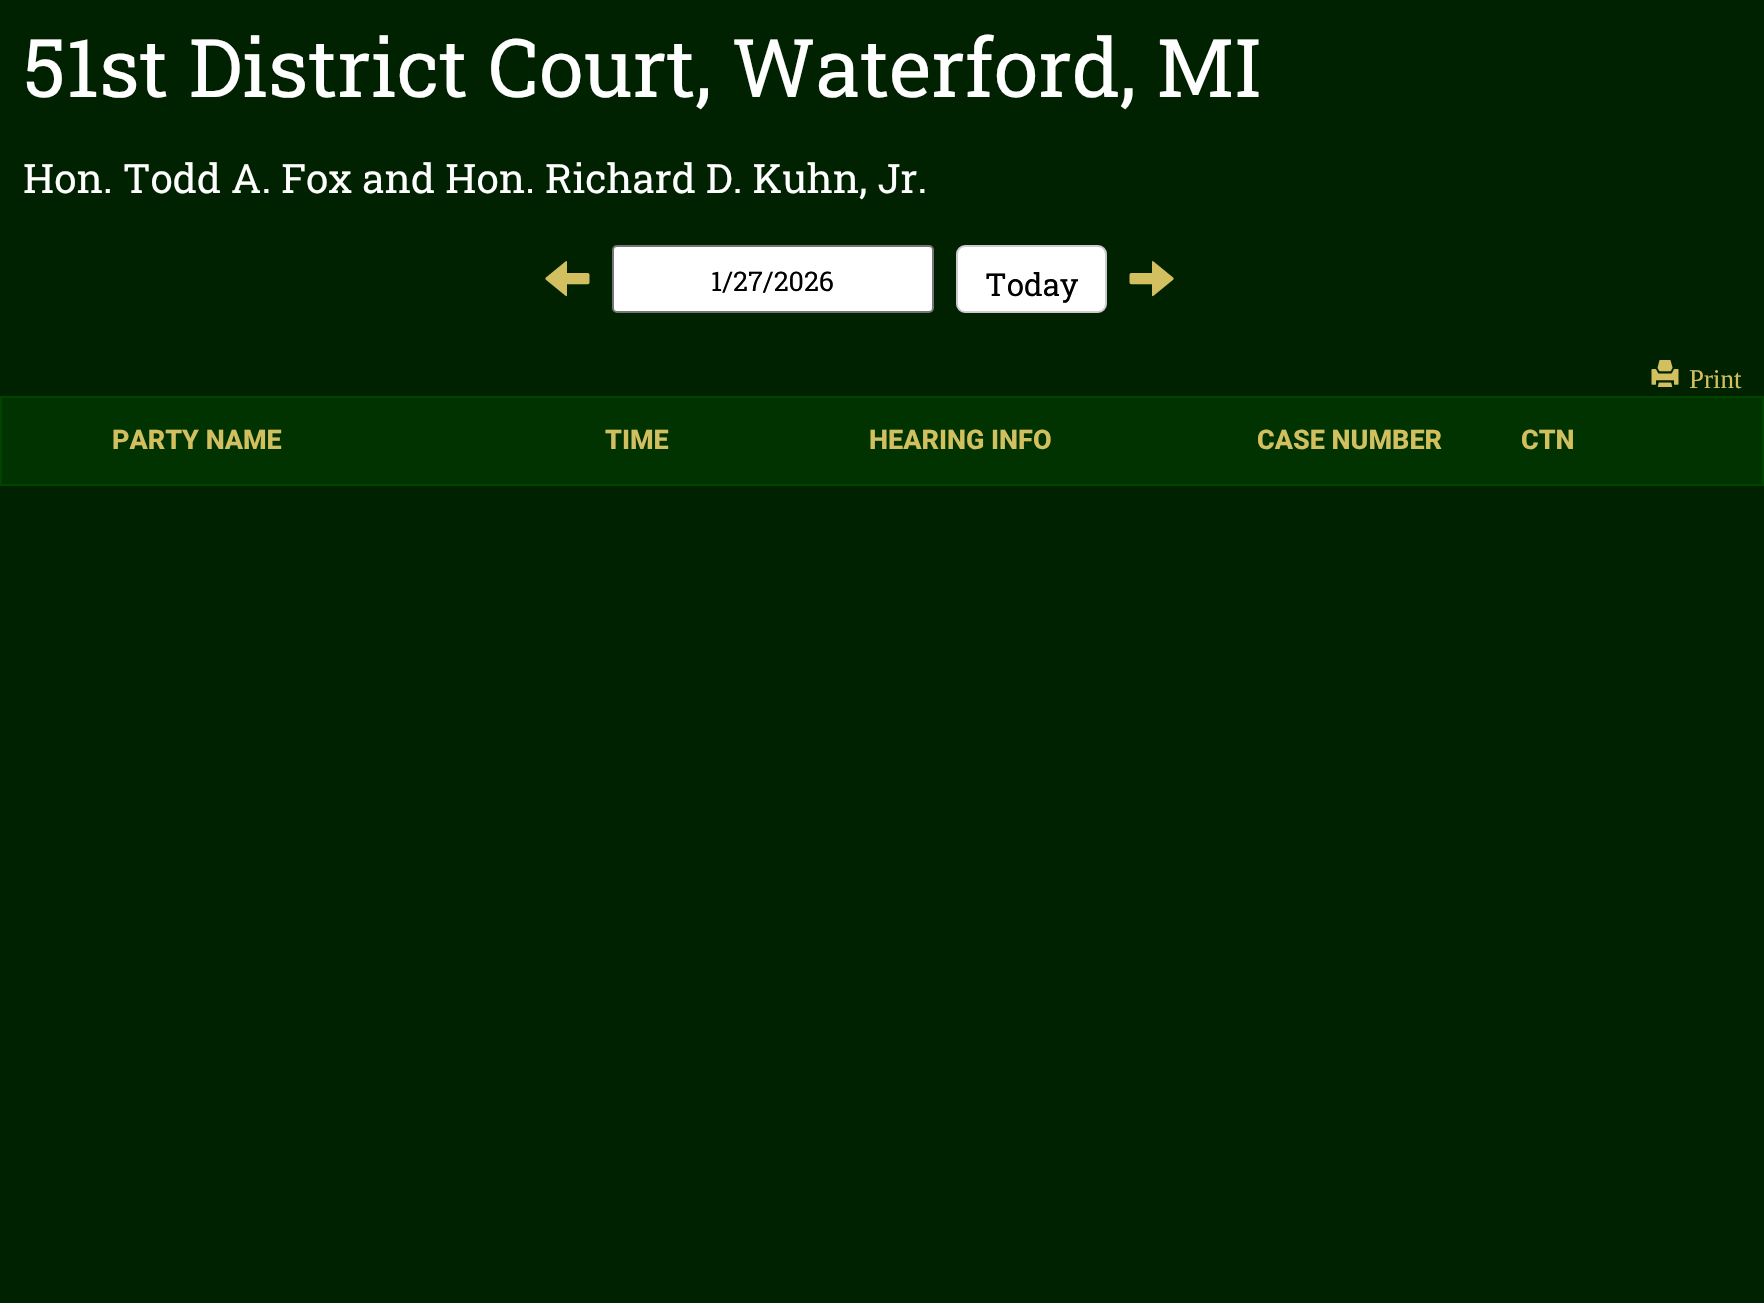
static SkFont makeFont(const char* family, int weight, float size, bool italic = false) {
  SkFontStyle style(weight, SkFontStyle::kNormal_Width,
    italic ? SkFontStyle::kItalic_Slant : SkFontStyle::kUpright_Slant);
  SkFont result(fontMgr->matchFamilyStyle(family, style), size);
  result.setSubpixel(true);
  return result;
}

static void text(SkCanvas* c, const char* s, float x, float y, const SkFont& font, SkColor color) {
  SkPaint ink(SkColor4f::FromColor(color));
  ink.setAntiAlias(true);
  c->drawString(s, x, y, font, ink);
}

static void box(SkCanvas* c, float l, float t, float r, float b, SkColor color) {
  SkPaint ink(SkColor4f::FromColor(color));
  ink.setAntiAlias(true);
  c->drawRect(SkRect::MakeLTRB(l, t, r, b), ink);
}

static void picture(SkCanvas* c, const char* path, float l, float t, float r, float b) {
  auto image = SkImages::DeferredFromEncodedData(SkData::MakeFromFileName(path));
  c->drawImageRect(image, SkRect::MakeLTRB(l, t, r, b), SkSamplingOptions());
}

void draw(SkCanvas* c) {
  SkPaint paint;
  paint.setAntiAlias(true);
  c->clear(0xff002200);
  SkFont face1 = makeFont("Roboto Slab", 400, 81);
  text(c, "51st District Court, Waterford, MI", 23, 97, face1, 0xffffffff);
  SkFont face2 = makeFont("Roboto Slab", 400, 40.5f);
  text(c, "Hon. Todd A. Fox and Hon. Richard D. Kuhn, Jr.", 23, 193, face2, 0xffffffff);
  picture(c, "img_01.png", 545, 261, 590, 297);
  paint.setColor(0xffffffff);
  c->drawRoundRect(SkRect::MakeLTRB(613, 246, 933, 312), 4, 4, paint);
  paint.setStyle(SkPaint::kStroke_Style);
  paint.setStrokeWidth(2);
  paint.setColor(0xff767676);
  c->drawRoundRect(SkRect::MakeLTRB(613, 246, 933, 312), 4, 4, paint);
  SkFont face3 = makeFont("Roboto Slab", 400, 27);
  text(c, "1/27/2026", 711, 291, face3, 0xff000000);
  paint.setStyle(SkPaint::kFill_Style);
  paint.setColor(0xffffffff);
  c->drawRoundRect(SkRect::MakeLTRB(957, 246, 1106, 312), 8, 8, paint);
  paint.setStyle(SkPaint::kStroke_Style);
  paint.setColor(0xffcccccc);
  c->drawRoundRect(SkRect::MakeLTRB(957, 246, 1106, 312), 8, 8, paint);
  SkFont face4 = makeFont("Roboto Slab", 400, 31.5f);
  text(c, "Today", 985, 296, face4, 0xff000000);
  picture(c, "img_02.png", 1129, 261, 1174, 297);
  picture(c, "img_03.png", 1651, 360, 1679, 387);
  SkFont face5 = makeFont("Liberation Serif", 400, 27);
  text(c, "Print", 1689, 388, face5, 0xffd2bf5f);
  box(c, 0, 396, 1764, 398, 0xff004400);
  box(c, 1762, 396, 1764, 486, 0xff004400);
  box(c, 0, 484, 1764, 486, 0xff004400);
  box(c, 0, 396, 2, 486, 0xff004400);
  box(c, 2, 398, 1762, 484, 0xff003300);
  SkFont face6 = makeFont("Roboto", 800, 27);
  text(c, "PARTY NAME", 112, 449, face6, 0xffd2bf5f);
  text(c, "TIME", 605, 449, face6, 0xffd2bf5f);
  text(c, "HEARING INFO", 869, 449, face6, 0xffd2bf5f);
  text(c, "CASE NUMBER", 1257, 449, face6, 0xffd2bf5f);
  text(c, "CTN", 1521, 449, face6, 0xffd2bf5f);
}
